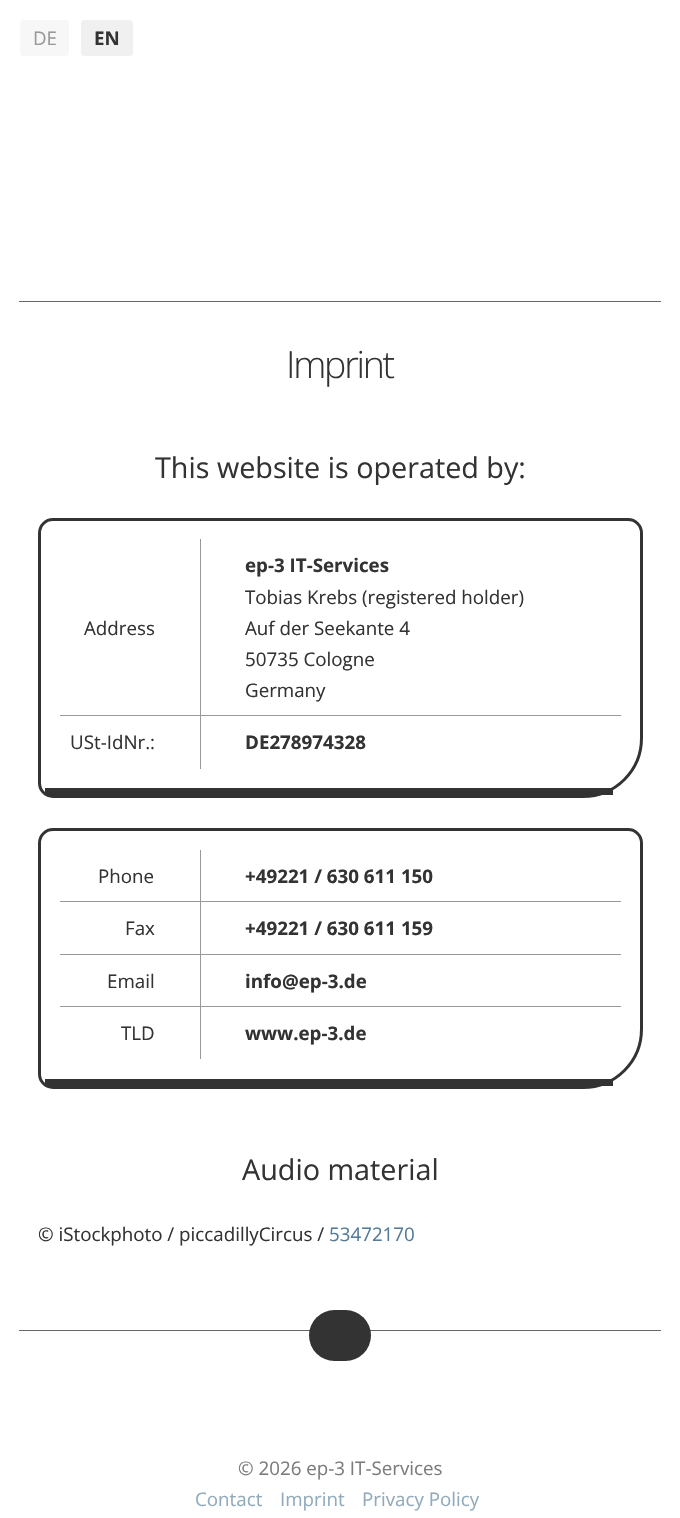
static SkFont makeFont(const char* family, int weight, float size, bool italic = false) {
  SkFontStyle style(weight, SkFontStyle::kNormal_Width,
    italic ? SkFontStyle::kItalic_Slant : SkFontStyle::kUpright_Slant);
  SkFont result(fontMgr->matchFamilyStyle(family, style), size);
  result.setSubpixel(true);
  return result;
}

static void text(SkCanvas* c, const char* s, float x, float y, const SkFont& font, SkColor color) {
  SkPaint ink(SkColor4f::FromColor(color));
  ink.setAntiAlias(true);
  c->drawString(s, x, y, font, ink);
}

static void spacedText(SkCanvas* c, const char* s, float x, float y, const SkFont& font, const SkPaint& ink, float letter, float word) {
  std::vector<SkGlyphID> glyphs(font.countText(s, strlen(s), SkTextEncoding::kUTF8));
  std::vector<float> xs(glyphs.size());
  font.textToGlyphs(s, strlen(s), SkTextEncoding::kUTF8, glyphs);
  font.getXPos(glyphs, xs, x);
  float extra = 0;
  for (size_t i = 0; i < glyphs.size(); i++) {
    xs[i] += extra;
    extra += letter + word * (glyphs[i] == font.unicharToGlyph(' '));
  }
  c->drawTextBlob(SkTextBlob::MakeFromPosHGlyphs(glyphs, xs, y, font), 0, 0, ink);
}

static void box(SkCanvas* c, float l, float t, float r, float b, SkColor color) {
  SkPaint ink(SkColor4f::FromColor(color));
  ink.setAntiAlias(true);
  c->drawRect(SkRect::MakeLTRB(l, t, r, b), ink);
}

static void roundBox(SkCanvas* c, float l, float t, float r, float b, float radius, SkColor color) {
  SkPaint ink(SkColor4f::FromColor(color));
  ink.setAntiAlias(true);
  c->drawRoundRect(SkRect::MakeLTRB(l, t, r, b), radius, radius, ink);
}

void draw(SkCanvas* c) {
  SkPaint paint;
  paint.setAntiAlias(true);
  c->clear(0xffffffff);
  roundBox(c, 20, 20, 69, 56, 4, 0xfff7f7f7);
  SkFont face1 = makeFont("Open Sans", 400, 18.75f);
  text(c, "DE", 33, 45, face1, 0xff999999);
  roundBox(c, 81, 20, 133, 56, 4, 0xfff0f0f0);
  SkFont face2 = makeFont("Open Sans", 700, 18.75f);
  text(c, "EN", 94, 45, face2, 0xff333333);
  box(c, 19, 301, 661, 302, 0xff666666);
  box(c, 19, 1330, 661, 1331, 0xff666666);
  SkFont face3 = makeFont("Open Sans", 300, 37.5f);
  paint.setColor(0xff333333);
  spacedText(c, "Imprint", 286, 378, face3, paint, -2.25f, 0);
  SkFont face4 = makeFont("Open Sans", 400, 28.75f);
  text(c, "This website is operated by:", 155, 478, face4, 0xff333333);
  paint.setStyle(SkPaint::kStroke_Style);
  paint.setStrokeWidth(3);
  c->drawPath(SkPathBuilder().moveTo(53, 519.5f).lineTo(628, 519.5f).cubicTo(635.5f, 519.5f, 641.5f, 525.5f, 641.5f, 533).lineTo(641.5f, 738).cubicTo(641.5f, 770.5f, 615.5f, 796.5f, 583, 796.5f).lineTo(53, 796.5f).cubicTo(45.5f, 796.5f, 39.5f, 790.5f, 39.5f, 783).lineTo(39.5f, 533).cubicTo(39.5f, 525.5f, 45.5f, 519.5f, 53, 519.5f).close().detach(), paint);
  box(c, 45, 788, 613, 795, 0xff333333);
  box(c, 200, 715, 201, 769, 0xff999999);
  box(c, 200, 715, 621, 716, 0xff999999);
  box(c, 200, 539, 201, 716, 0xff999999);
  box(c, 60, 715, 201, 716, 0xff999999);
  text(c, "Address", 84, 635, face1, 0xff333333);
  text(c, "ep-3 IT-Services", 245, 572, face2, 0xff333333);
  text(c, "Tobias Krebs (registered holder)", 245, 604, face1, 0xff333333);
  text(c, "Auf der Seekante 4", 245, 635, face1, 0xff333333);
  text(c, "50735 Cologne", 245, 666, face1, 0xff333333);
  text(c, "Germany", 245, 697, face1, 0xff333333);
  text(c, "USt-IdNr.:", 70, 749, face1, 0xff333333);
  text(c, "DE278974328", 245, 749, face2, 0xff333333);
  c->drawPath(SkPathBuilder().moveTo(53, 829.5f).lineTo(628, 829.5f).cubicTo(635.5f, 829.5f, 641.5f, 835.5f, 641.5f, 843).lineTo(641.5f, 1029).cubicTo(641.5f, 1061.5f, 615.5f, 1087.5f, 583, 1087.5f).lineTo(53, 1087.5f).cubicTo(45.5f, 1087.5f, 39.5f, 1081.5f, 39.5f, 1074).lineTo(39.5f, 843).cubicTo(39.5f, 835.5f, 45.5f, 829.5f, 53, 829.5f).close().detach(), paint);
  box(c, 45, 1079, 613, 1086, 0xff333333);
  box(c, 200, 1006, 201, 1059, 0xff999999);
  box(c, 200, 1006, 621, 1007, 0xff999999);
  box(c, 200, 954, 201, 1008, 0xff999999);
  box(c, 200, 954, 621, 955, 0xff999999);
  box(c, 200, 901, 201, 955, 0xff999999);
  box(c, 200, 901, 621, 902, 0xff999999);
  box(c, 200, 850, 201, 903, 0xff999999);
  box(c, 60, 901, 201, 902, 0xff999999);
  text(c, "Phone", 98, 883, face1, 0xff333333);
  text(c, "+49221 / 630 611 150", 245, 883, face2, 0xff333333);
  box(c, 60, 954, 201, 955, 0xff999999);
  text(c, "Fax", 125, 935, face1, 0xff333333);
  text(c, "+49221 / 630 611 159", 245, 935, face2, 0xff333333);
  box(c, 60, 1006, 201, 1007, 0xff999999);
  text(c, "Email", 107, 988, face1, 0xff333333);
  text(c, "info@ep-3.de", 245, 988, face2, 0xff333333);
  text(c, "TLD", 121, 1040, face1, 0xff333333);
  text(c, "www.ep-3.de", 245, 1040, face2, 0xff333333);
  text(c, "Audio material", 242, 1180, face4, 0xff333333);
  text(c, "© iStockphoto / piccadillyCircus /", 38, 1241, face1, 0xff333333);
  text(c, "53472170", 329, 1241, face1, 0xff547b97);
  roundBox(c, 309, 1310, 371, 1361, 25.5f, 0xff333333);
  text(c, "© 2026 ep-3 IT-Services", 238, 1475, face1, 0xff7c7c7c);
  text(c, "Contact", 195, 1506, face1, 0xff92abbc);
  text(c, "Imprint", 280, 1506, face1, 0xff92abbc);
  text(c, "Privacy Policy", 362, 1506, face1, 0xff92abbc);
}
